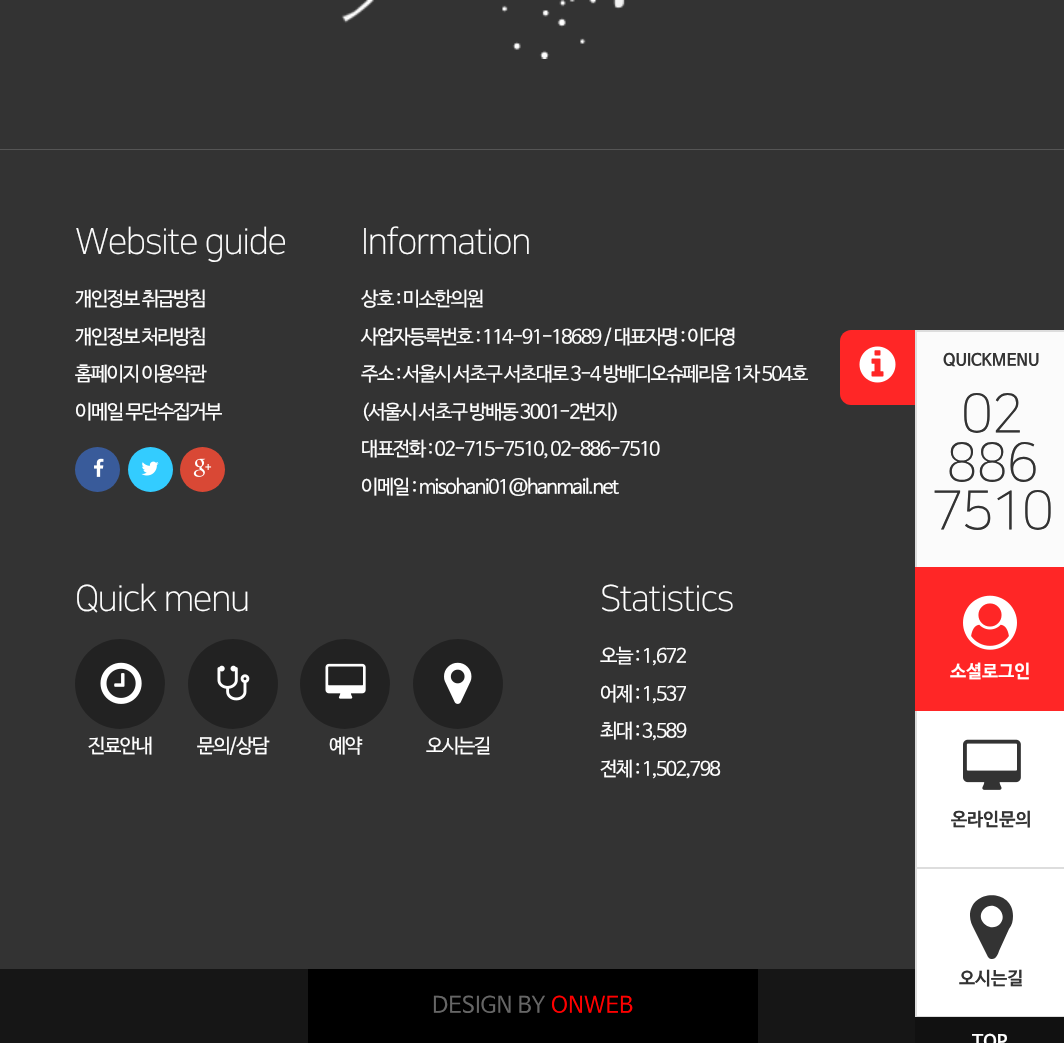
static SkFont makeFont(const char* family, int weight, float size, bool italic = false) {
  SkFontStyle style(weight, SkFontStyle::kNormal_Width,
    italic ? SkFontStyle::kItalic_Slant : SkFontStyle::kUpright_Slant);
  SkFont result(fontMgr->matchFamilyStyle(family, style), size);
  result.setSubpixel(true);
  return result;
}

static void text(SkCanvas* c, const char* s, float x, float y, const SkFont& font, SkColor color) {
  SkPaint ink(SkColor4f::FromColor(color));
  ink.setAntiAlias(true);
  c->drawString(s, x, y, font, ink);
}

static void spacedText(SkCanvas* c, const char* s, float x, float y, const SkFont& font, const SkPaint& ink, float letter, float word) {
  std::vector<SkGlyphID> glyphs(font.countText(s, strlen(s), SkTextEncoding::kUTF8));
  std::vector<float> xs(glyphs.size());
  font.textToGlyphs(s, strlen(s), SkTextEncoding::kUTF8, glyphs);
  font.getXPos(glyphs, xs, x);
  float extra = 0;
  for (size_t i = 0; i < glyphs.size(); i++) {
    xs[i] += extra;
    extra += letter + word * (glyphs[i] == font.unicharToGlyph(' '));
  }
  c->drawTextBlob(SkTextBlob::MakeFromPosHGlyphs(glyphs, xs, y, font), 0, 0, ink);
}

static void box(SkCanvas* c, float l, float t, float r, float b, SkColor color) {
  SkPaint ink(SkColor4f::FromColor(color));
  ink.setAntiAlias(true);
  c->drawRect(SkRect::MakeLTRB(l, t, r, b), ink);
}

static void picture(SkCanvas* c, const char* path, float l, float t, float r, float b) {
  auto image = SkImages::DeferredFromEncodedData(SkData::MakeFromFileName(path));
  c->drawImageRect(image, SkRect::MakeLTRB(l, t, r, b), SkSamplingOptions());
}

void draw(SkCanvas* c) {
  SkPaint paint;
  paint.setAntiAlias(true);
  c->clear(0xff333333);
  box(c, 0, 149, 1064, 150, 0xff555555);
  picture(c, "img_01.png", 341, 0, 625, 59);
  SkFont face1 = makeFont("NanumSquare", 300, 36);
  paint.setColor(0xffffffff);
  spacedText(c, "Website guide", 75, 253, face1, paint, -1.5f, 0);
  SkFont face2 = makeFont("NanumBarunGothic", 400, 19.5f);
  spacedText(c, "개인정보 취급방침", 75, 305, face2, paint, -1.5f, 0);
  spacedText(c, "개인정보 처리방침", 75, 343, face2, paint, -1.5f, 0);
  spacedText(c, "홈페이지 이용약관", 75, 380, face2, paint, -1.5f, 0);
  spacedText(c, "이메일 무단수집거부", 75, 418, face2, paint, -1.5f, 0);
  paint.setColor(0xff395b9a);
  c->drawCircle(97.5f, 469.5f, 22.5f, paint);
  picture(c, "img_02.png", 94, 458, 104, 477);
  paint.setColor(0xff33ccff);
  c->drawCircle(150.5f, 469.5f, 22.5f, paint);
  picture(c, "img_03.png", 141, 461, 159, 476);
  paint.setColor(0xffd94835);
  c->drawCircle(202.5f, 469.5f, 22.5f, paint);
  picture(c, "img_04.png", 193, 458, 212, 477);
  paint.setColor(0xffffffff);
  spacedText(c, "Information", 361, 253, face1, paint, -1.5f, 0);
  spacedText(c, "상호 : 미소한의원", 361, 305, face2, paint, -1.5f, 0);
  spacedText(c, "사업자등록번호 : 114-91-18689 / 대표자명 : 이다영", 361, 343, face2, paint, -1.5f, 0);
  spacedText(c, "주소 : 서울시 서초구 서초대로 3-4 방배디오슈페리움 1차 504호", 361, 380, face2, paint, -1.5f, 0);
  spacedText(c, "(서울시 서초구 방배동 3001-2번지)", 361, 418, face2, paint, -1.5f, 0);
  spacedText(c, "대표전화 : 02-715-7510, 02-886-7510", 361, 455, face2, paint, -1.5f, 0);
  spacedText(c, "이메일 : misohani01@hanmail.net", 361, 493, face2, paint, -1.5f, 0);
  spacedText(c, "Quick menu", 75, 610, face1, paint, -1.5f, 0);
  paint.setColor(0xff222222);
  c->drawCircle(120, 684, 45, paint);
  picture(c, "img_05.png", 100, 662, 142, 704);
  paint.setColor(0xffffffff);
  spacedText(c, "진료안내", 88, 752, face2, paint, -1.5f, 0);
  paint.setColor(0xff222222);
  c->drawCircle(233, 684, 45, paint);
  picture(c, "img_06.png", 217, 665, 250, 701);
  paint.setColor(0xffffffff);
  spacedText(c, "문의/상담", 197, 752, face2, paint, -1.5f, 0);
  paint.setColor(0xff222222);
  c->drawCircle(345, 684, 45, paint);
  picture(c, "img_07.png", 325, 663, 366, 699);
  paint.setColor(0xffffffff);
  spacedText(c, "예약", 329, 752, face2, paint, -1.5f, 0);
  paint.setColor(0xff222222);
  c->drawCircle(458, 684, 45, paint);
  picture(c, "img_08.png", 444, 662, 472, 704);
  paint.setColor(0xffffffff);
  spacedText(c, "오시는길", 426, 752, face2, paint, -1.5f, 0);
  spacedText(c, "Statistics", 600, 610, face1, paint, -1.5f, 0);
  spacedText(c, "오늘 : 1,672", 600, 662, face2, paint, -1.5f, 0);
  spacedText(c, "어제 : 1,537", 600, 700, face2, paint, -1.5f, 0);
  spacedText(c, "최대 : 3,589", 600, 737, face2, paint, -1.5f, 0);
  spacedText(c, "전체 : 1,502,798", 600, 775, face2, paint, -1.5f, 0);
  paint.setColor(0xffff2626);
  c->drawPath(SkPathBuilder().moveTo(851, 330).lineTo(915, 330).lineTo(915, 405).lineTo(851, 405).cubicTo(845, 405, 840, 400, 840, 394).lineTo(840, 341).cubicTo(840, 335, 845, 330, 851, 330).close().detach(), paint);
  picture(c, "img_09.png", 859, 346, 896, 383);
  box(c, 917, 332, 1064, 567, 0xfffbfbfb);
  box(c, 915, 330, 1064, 332, 0xffdddddd);
  box(c, 915, 330, 917, 567, 0xffdddddd);
  SkFont face3 = makeFont("NanumBarunGothic", 700, 16.5f);
  text(c, "QUICKMENU", 943, 365, face3, 0xff333333);
  SkFont face4 = makeFont("NanumSquare", 300, 54);
  paint.setColor(0xff333333);
  spacedText(c, "02", 961, 431, face4, paint, -1.5f, 0);
  spacedText(c, "886", 946, 480, face4, paint, -1.5f, 0);
  spacedText(c, "7510", 931, 528, face4, paint, -1.5f, 0);
  box(c, 915, 567, 1064, 711, 0xffff2626);
  picture(c, "img_10.png", 963, 595, 1017, 650);
  SkFont face5 = makeFont("NanumBarunGothic", 700, 18);
  text(c, "소셜로그인", 950, 677, face5, 0xffffffff);
  box(c, 915, 1016, 1064, 1017, 0xffdddddd);
  box(c, 915, 711, 917, 1017, 0xffdddddd);
  box(c, 917, 711, 1064, 867, 0xffffffff);
  picture(c, "img_11.png", 963, 739, 1021, 790);
  text(c, "온라인문의", 951, 825, face5, 0xff333333);
  box(c, 917, 869, 1064, 1016, 0xffffffff);
  box(c, 917, 867, 1064, 869, 0xffdddddd);
  c->drawPath(SkPathBuilder().moveTo(970, 916).cubicTo(970, 889, 1013, 888, 1013, 916).cubicTo(1013, 921, 1012, 925, 1009, 929).lineTo(999, 951).cubicTo(998, 954, 996, 960, 991, 959).cubicTo(990, 959, 989, 958, 988, 957).lineTo(974, 929).cubicTo(972, 925, 970, 921, 970, 916).close().moveTo(984, 909).cubicTo(974, 919, 990, 934, 1000, 924).cubicTo(1009, 914, 994, 899, 984, 909).close().detach(), paint);
  text(c, "오시는길", 959, 984, face5, 0xff333333);
  box(c, 915, 1017, 1064, 1043, 0xff111111);
  text(c, "TOP", 972, 1047, face5, 0xffffffff);
  box(c, 0, 969, 915, 1043, 0xff161616);
  box(c, 308, 969, 758, 1043, 0xff000000);
  SkFont face6 = makeFont("NanumBarunGothic", 400, 22.5f);
  text(c, "DESIGN BY", 432, 1012, face6, 0xff666666);
  text(c, "ONWEB", 551, 1012, face6, 0xffff0000);
}
